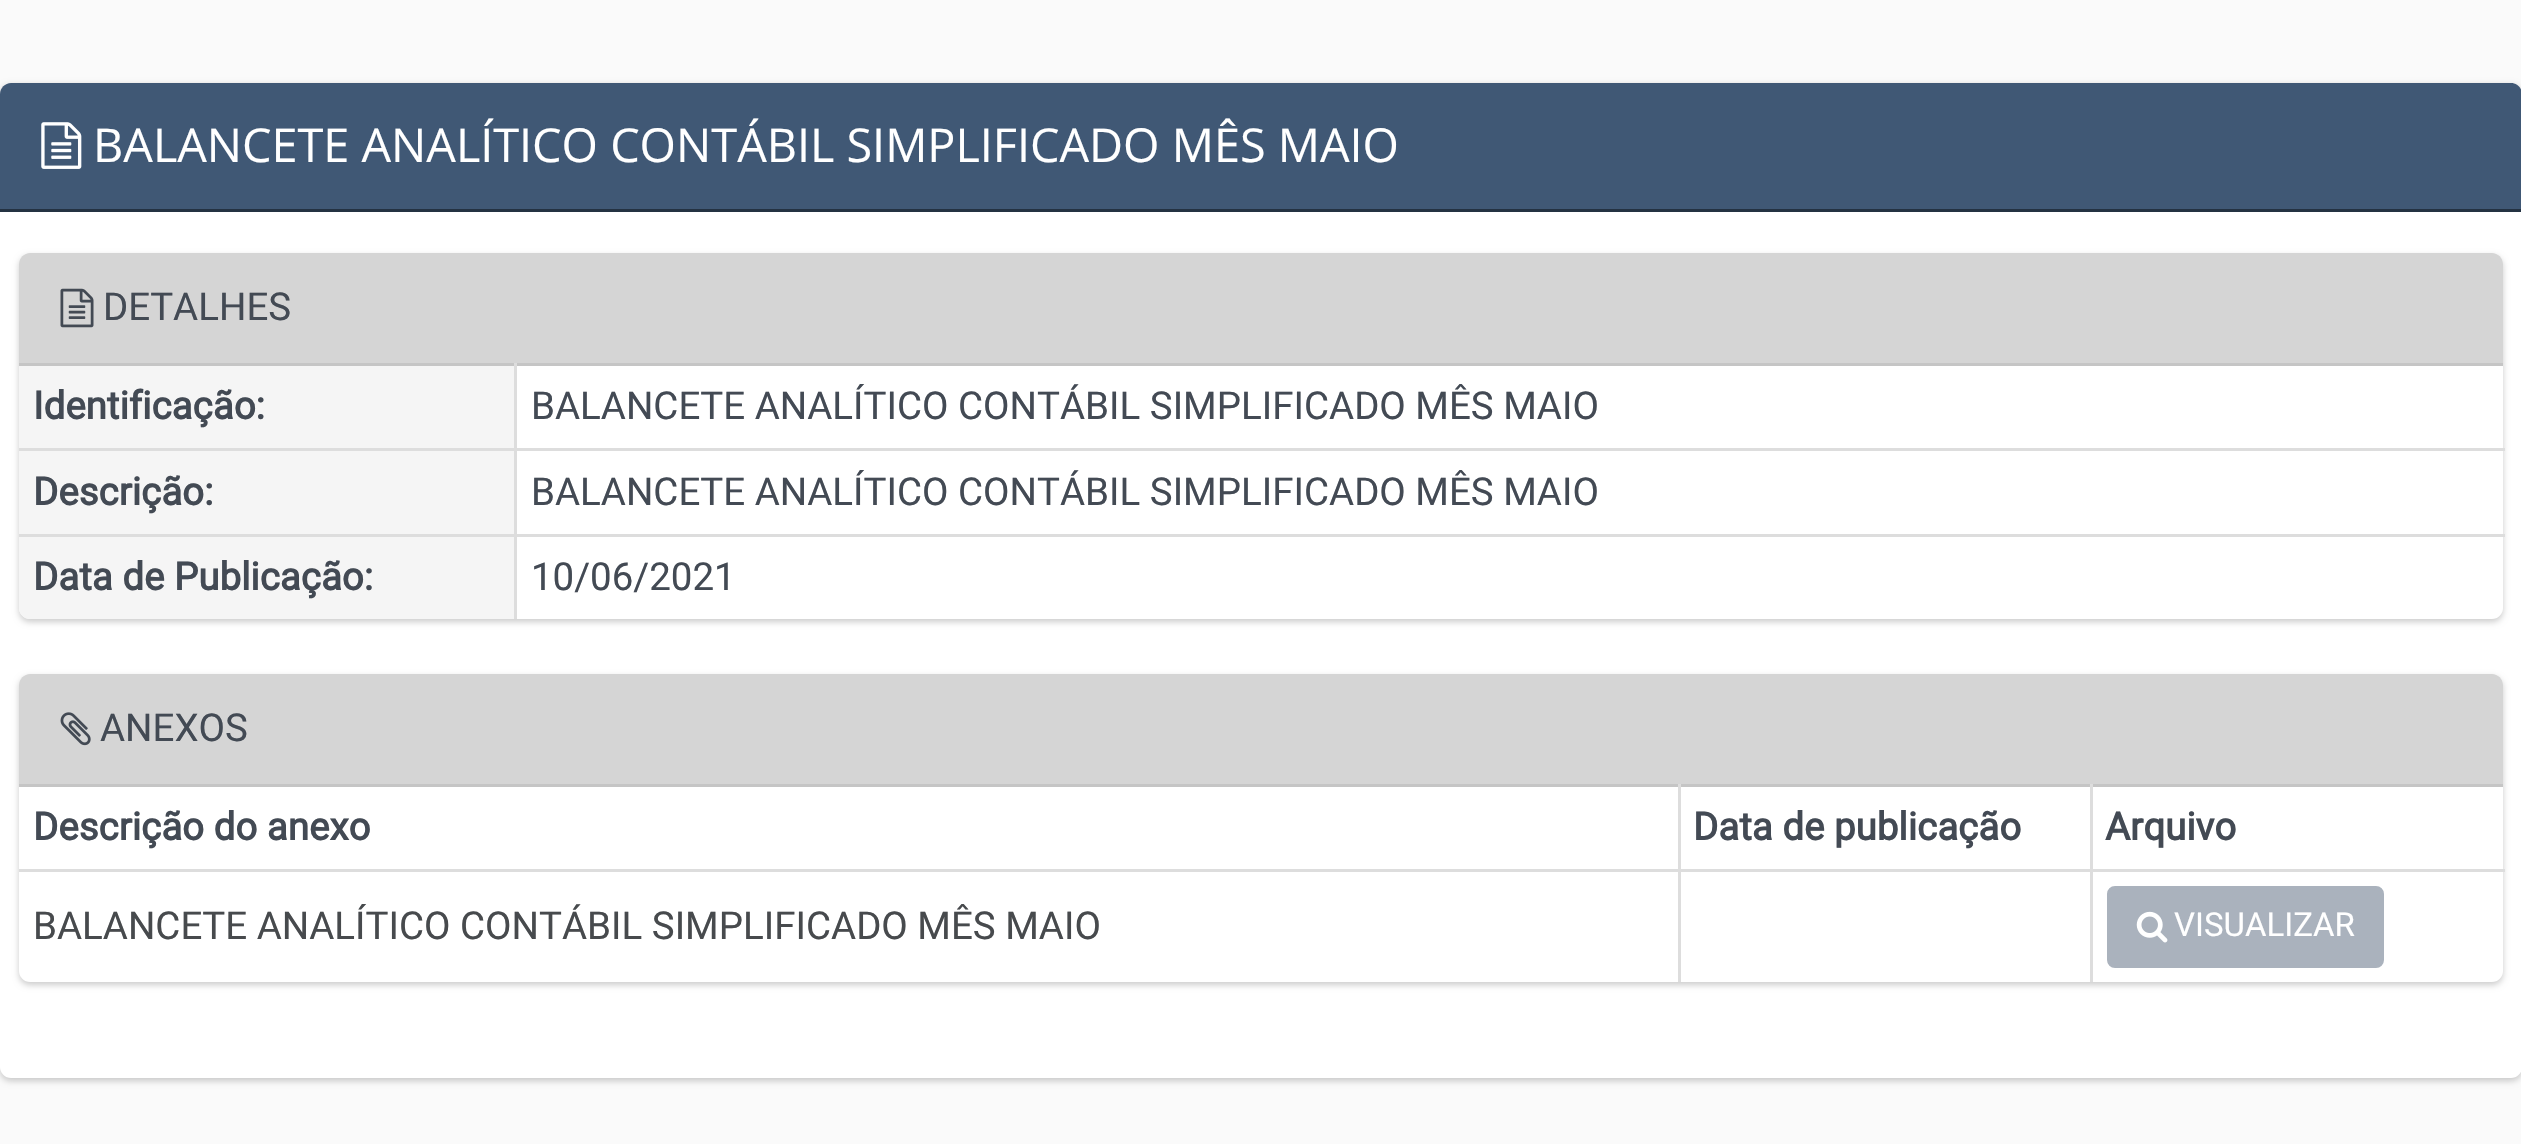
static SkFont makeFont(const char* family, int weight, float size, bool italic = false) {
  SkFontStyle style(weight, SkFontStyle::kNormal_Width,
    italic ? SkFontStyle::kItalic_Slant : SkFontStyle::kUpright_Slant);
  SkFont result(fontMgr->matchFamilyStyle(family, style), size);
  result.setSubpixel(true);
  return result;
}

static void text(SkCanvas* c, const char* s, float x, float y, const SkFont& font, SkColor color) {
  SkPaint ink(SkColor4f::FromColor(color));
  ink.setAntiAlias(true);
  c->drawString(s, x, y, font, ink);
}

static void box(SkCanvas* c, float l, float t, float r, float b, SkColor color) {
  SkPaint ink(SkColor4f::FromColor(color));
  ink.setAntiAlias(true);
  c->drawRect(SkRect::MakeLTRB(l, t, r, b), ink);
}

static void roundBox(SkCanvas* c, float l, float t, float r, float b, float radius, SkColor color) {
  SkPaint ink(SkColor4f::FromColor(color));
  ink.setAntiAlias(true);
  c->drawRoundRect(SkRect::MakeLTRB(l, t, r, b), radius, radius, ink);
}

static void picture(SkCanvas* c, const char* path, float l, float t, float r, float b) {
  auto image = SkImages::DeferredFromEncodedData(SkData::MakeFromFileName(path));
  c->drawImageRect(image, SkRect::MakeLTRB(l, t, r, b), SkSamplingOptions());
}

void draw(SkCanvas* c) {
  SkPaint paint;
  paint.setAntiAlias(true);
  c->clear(0xfffafafa);
  paint.setColor(0x33000000);
  paint.setMaskFilter(SkMaskFilter::MakeBlur(kNormal_SkBlurStyle, 3));
  c->drawRoundRect(SkRect::MakeLTRB(0, 85, 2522, 1081), 11, 11, paint);
  paint.setMaskFilter(nullptr);
  roundBox(c, 0, 83, 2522, 1078, 11, 0xffffffff);
  paint.setColor(0xff405875);
  c->drawPath(SkPathBuilder().moveTo(11, 83).lineTo(2511, 83).cubicTo(2517, 83, 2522, 88, 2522, 94).lineTo(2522, 212).lineTo(0, 212).lineTo(0, 94).cubicTo(0, 88, 5, 83, 11, 83).close().detach(), paint);
  box(c, 0, 209, 2521, 212, 0xff243242);
  picture(c, "img_01.png", 41, 122, 82, 169);
  SkFont face1 = makeFont("Open Sans", 400, 46.75f);
  text(c, "BALANCETE ANALÍTICO CONTÁBIL SIMPLIFICADO MÊS MAIO", 93, 162, face1, 0xffffffff);
  paint.setColor(0x33000000);
  paint.setMaskFilter(SkMaskFilter::MakeBlur(kNormal_SkBlurStyle, 3));
  c->drawRoundRect(SkRect::MakeLTRB(19, 256, 2503, 622), 11, 11, paint);
  paint.setMaskFilter(nullptr);
  roundBox(c, 19, 253, 2503, 619, 11, 0xffffffff);
  paint.setColor(0xffd5d5d5);
  c->drawPath(SkPathBuilder().moveTo(30, 253).lineTo(2492, 253).cubicTo(2498, 253, 2503, 258, 2503, 264).lineTo(2503, 366).lineTo(19, 366).lineTo(19, 264).cubicTo(19, 258, 24, 253, 30, 253).close().detach(), paint);
  box(c, 19, 363, 2503, 366, 0xffc5c5c5);
  picture(c, "img_02.png", 60, 288, 94, 328);
  SkFont face2 = makeFont("Roboto", 400, 38.5f);
  text(c, "DETALHES", 103, 320, face2, 0xff434a54);
  box(c, 19, 366, 514, 448, 0xfff5f5f5);
  SkFont face3 = makeFont("Roboto", 700, 38.5f);
  text(c, "Identificação:", 33, 419, face3, 0xff434a54);
  box(c, 514, 448, 2505, 451, 0xffdddddd);
  paint.setColor(0xfff5f5f5);
  c->drawPath(SkPathBuilder().moveTo(19, 534).lineTo(517, 534).lineTo(517, 619).lineTo(30, 619).cubicTo(24, 619, 19, 614, 19, 608).close().detach(), paint);
  box(c, 514, 534, 2505, 537, 0xffdddddd);
  box(c, 514, 534, 517, 619, 0xffdddddd);
  box(c, 19, 534, 517, 537, 0xffdddddd);
  box(c, 514, 448, 517, 536, 0xffdddddd);
  box(c, 19, 448, 517, 451, 0xffdddddd);
  box(c, 514, 363, 517, 451, 0xffdddddd);
  text(c, "BALANCETE ANALÍTICO CONTÁBIL SIMPLIFICADO MÊS MAIO", 531, 419, face2, 0xff434a54);
  box(c, 19, 451, 514, 534, 0xfff5f5f5);
  text(c, "Descrição:", 33, 505, face3, 0xff434a54);
  text(c, "BALANCETE ANALÍTICO CONTÁBIL SIMPLIFICADO MÊS MAIO", 531, 505, face2, 0xff434a54);
  text(c, "Data de Publicação:", 33, 590, face3, 0xff434a54);
  text(c, "10/06/2021", 531, 590, face2, 0xff434a54);
  paint.setColor(0x33000000);
  paint.setMaskFilter(SkMaskFilter::MakeBlur(kNormal_SkBlurStyle, 3));
  c->drawRoundRect(SkRect::MakeLTRB(19, 677, 2503, 985), 11, 11, paint);
  paint.setMaskFilter(nullptr);
  roundBox(c, 19, 674, 2503, 982, 11, 0xffffffff);
  paint.setColor(0xffd5d5d5);
  c->drawPath(SkPathBuilder().moveTo(30, 674).lineTo(2492, 674).cubicTo(2498, 674, 2503, 679, 2503, 685).lineTo(2503, 787).lineTo(19, 787).lineTo(19, 685).cubicTo(19, 679, 24, 674, 30, 674).close().detach(), paint);
  box(c, 19, 784, 2503, 787, 0xffc5c5c5);
  picture(c, "img_03.png", 60, 712, 91, 746);
  text(c, "ANEXOS", 100, 741, face2, 0xff434a54);
  text(c, "Descrição do anexo", 33, 840, face3, 0xff434a54);
  box(c, 2090, 869, 2505, 872, 0xffdddddd);
  box(c, 2090, 869, 2093, 982, 0xffdddddd);
  box(c, 1678, 869, 2093, 872, 0xffdddddd);
  box(c, 1678, 869, 1681, 982, 0xffdddddd);
  box(c, 19, 869, 1680, 872, 0xffdddddd);
  box(c, 1678, 784, 1681, 872, 0xffdddddd);
  text(c, "Data de publicação", 1693, 840, face3, 0xff434a54);
  box(c, 2090, 784, 2093, 872, 0xffdddddd);
  text(c, "Arquivo", 2105, 840, face3, 0xff434a54);
  text(c, "BALANCETE ANALÍTICO CONTÁBIL SIMPLIFICADO MÊS MAIO", 33, 939, face2, 0xff474a4d);
  paint.setColor(0xffaab2bd);
  c->drawRoundRect(SkRect::MakeLTRB(2108.5f, 887.5f, 2382.5f, 966.5f), 6.5f, 6.5f, paint);
  paint.setStyle(SkPaint::kStroke_Style);
  paint.setStrokeWidth(3);
  c->drawRoundRect(SkRect::MakeLTRB(2108.5f, 887.5f, 2382.5f, 966.5f), 6.5f, 6.5f, paint);
  picture(c, "img_04.png", 2136, 911, 2168, 943);
  SkFont face4 = makeFont("Roboto", 400, 33);
  text(c, "VISUALIZAR", 2174, 936, face4, 0xffffffff);
}
